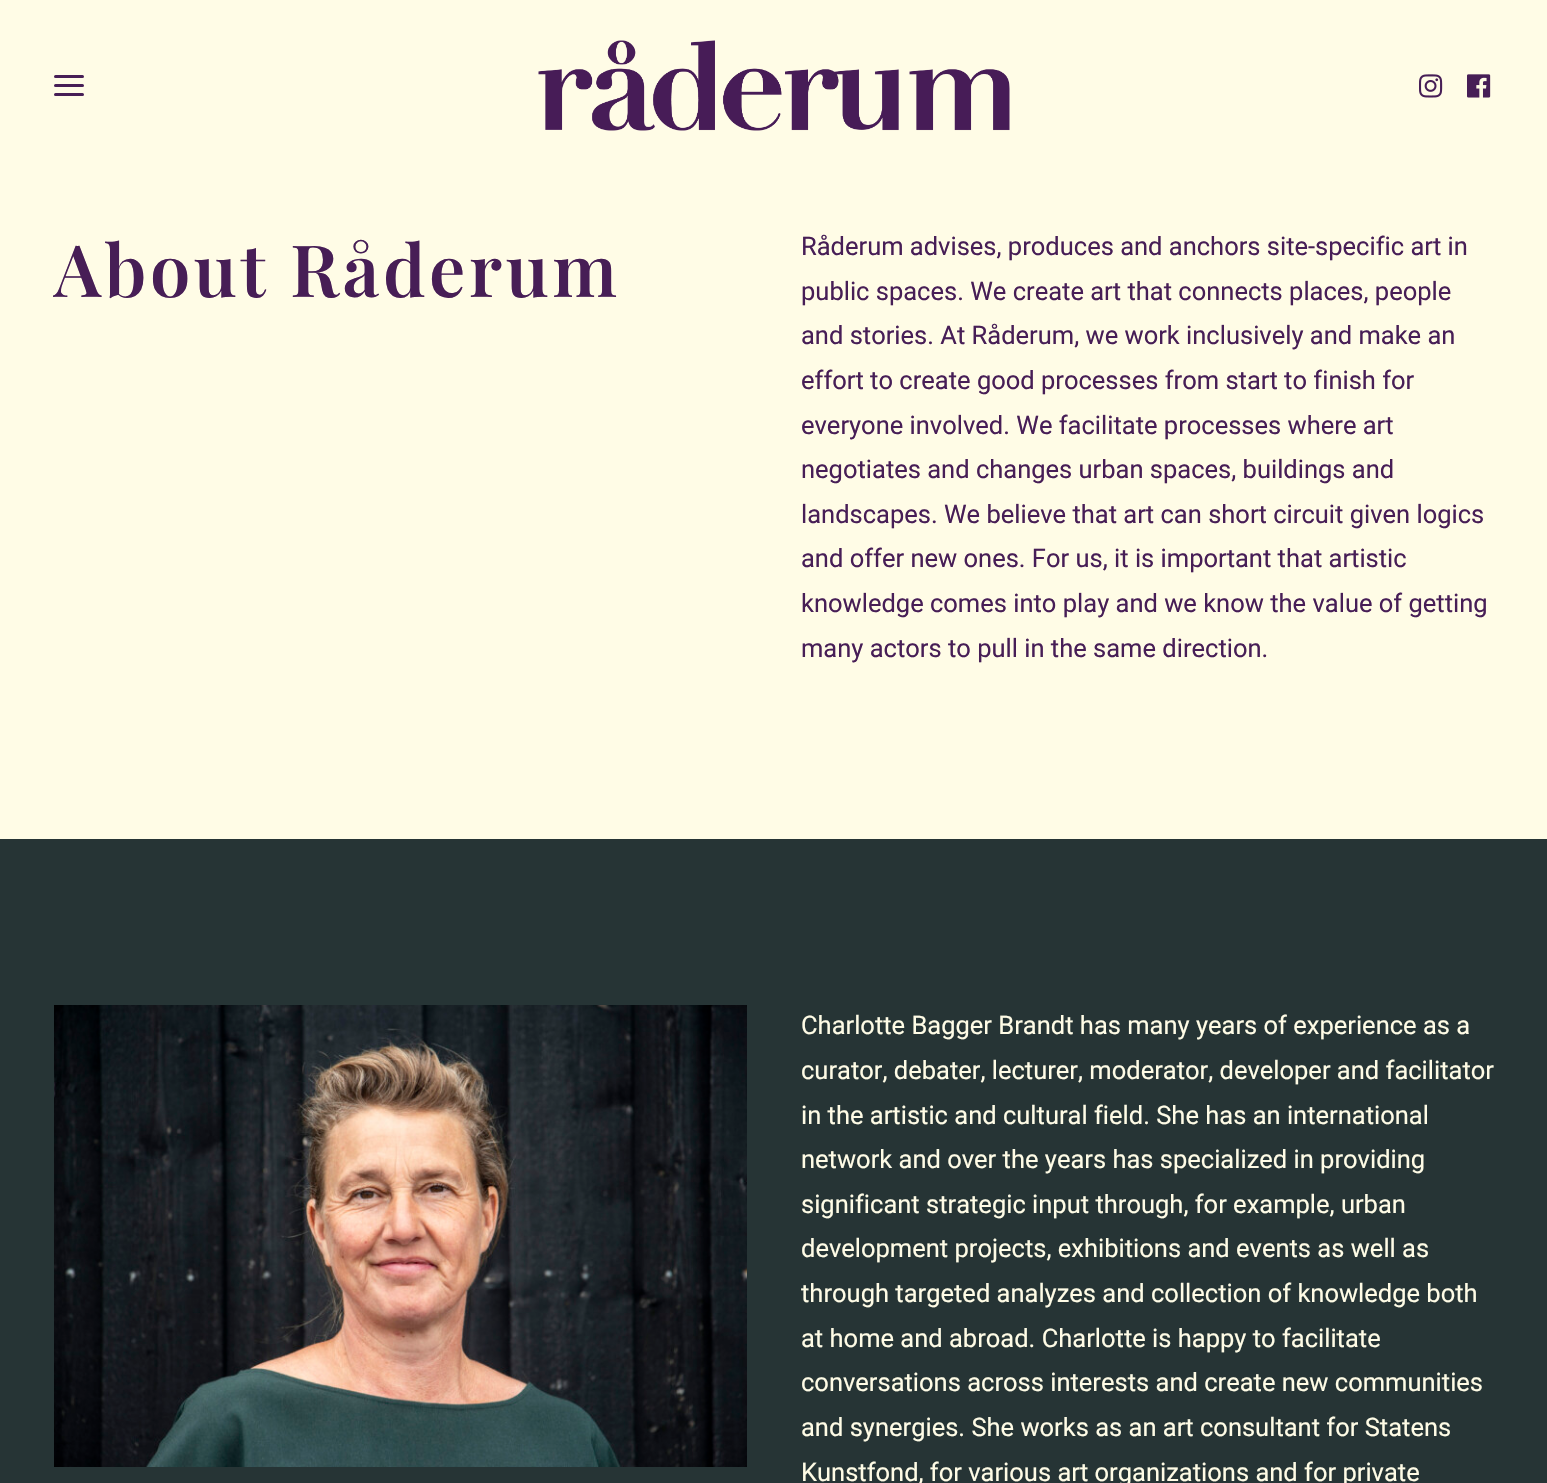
static SkFont makeFont(const char* family, int weight, float size, bool italic = false) {
  SkFontStyle style(weight, SkFontStyle::kNormal_Width,
    italic ? SkFontStyle::kItalic_Slant : SkFontStyle::kUpright_Slant);
  SkFont result(fontMgr->matchFamilyStyle(family, style), size);
  result.setSubpixel(true);
  return result;
}

static void text(SkCanvas* c, const char* s, float x, float y, const SkFont& font, SkColor color) {
  SkPaint ink(SkColor4f::FromColor(color));
  ink.setAntiAlias(true);
  c->drawString(s, x, y, font, ink);
}

static void spacedText(SkCanvas* c, const char* s, float x, float y, const SkFont& font, const SkPaint& ink, float letter, float word) {
  std::vector<SkGlyphID> glyphs(font.countText(s, strlen(s), SkTextEncoding::kUTF8));
  std::vector<float> xs(glyphs.size());
  font.textToGlyphs(s, strlen(s), SkTextEncoding::kUTF8, glyphs);
  font.getXPos(glyphs, xs, x);
  float extra = 0;
  for (size_t i = 0; i < glyphs.size(); i++) {
    xs[i] += extra;
    extra += letter + word * (glyphs[i] == font.unicharToGlyph(' '));
  }
  c->drawTextBlob(SkTextBlob::MakeFromPosHGlyphs(glyphs, xs, y, font), 0, 0, ink);
}

static void box(SkCanvas* c, float l, float t, float r, float b, SkColor color) {
  SkPaint ink(SkColor4f::FromColor(color));
  ink.setAntiAlias(true);
  c->drawRect(SkRect::MakeLTRB(l, t, r, b), ink);
}

static void roundBox(SkCanvas* c, float l, float t, float r, float b, float radius, SkColor color) {
  SkPaint ink(SkColor4f::FromColor(color));
  ink.setAntiAlias(true);
  c->drawRoundRect(SkRect::MakeLTRB(l, t, r, b), radius, radius, ink);
}

static void picture(SkCanvas* c, const char* path, float l, float t, float r, float b) {
  auto image = SkImages::DeferredFromEncodedData(SkData::MakeFromFileName(path));
  c->drawImageRect(image, SkRect::MakeLTRB(l, t, r, b), SkSamplingOptions());
}

void draw(SkCanvas* c) {
  SkPaint paint;
  paint.setAntiAlias(true);
  c->clear(0xfffffce6);
  roundBox(c, 54, 84, 84, 87, 1.5f, 0xff471e56);
  roundBox(c, 54, 75, 84, 78, 1.5f, 0xff471e56);
  roundBox(c, 54, 93, 84, 96, 1.5f, 0xff471e56);
  picture(c, "img_01.png", 538, 40, 1010, 131);
  picture(c, "img_02.png", 1419, 74, 1443, 98);
  picture(c, "img_03.png", 1467, 74, 1491, 98);
  SkFont face1 = makeFont("Playfair Display", 600, 72);
  paint.setColor(0xff471e56);
  spacedText(c, "About Råderum", 54, 297, face1, paint, 3.6f, 0);
  SkFont face2 = makeFont("Roboto", 400, 25.5f);
  text(c, "Råderum advises, produces and anchors site-specific art in", 801, 255, face2, 0xff471e56);
  text(c, "public spaces. We create art that connects places, people", 801, 300, face2, 0xff471e56);
  text(c, "and stories. At Råderum, we work inclusively and make an", 801, 344, face2, 0xff471e56);
  text(c, "effort to create good processes from start to finish for", 801, 389, face2, 0xff471e56);
  text(c, "everyone involved. We facilitate processes where art", 801, 434, face2, 0xff471e56);
  text(c, "negotiates and changes urban spaces, buildings and", 801, 478, face2, 0xff471e56);
  text(c, "landscapes. We believe that art can short circuit given logics", 801, 523, face2, 0xff471e56);
  text(c, "and offer new ones. For us, it is important that artistic", 801, 567, face2, 0xff471e56);
  text(c, "knowledge comes into play and we know the value of getting", 801, 612, face2, 0xff471e56);
  text(c, "many actors to pull in the same direction.", 801, 657, face2, 0xff471e56);
  box(c, 0, 839, 1547, 1483, 0xff263435);
  picture(c, "img_04.png", 54, 1005, 747, 1467);
  text(c, "Charlotte Bagger Brandt has many years of experience as a", 801, 1034, face2, 0xfffffce6);
  text(c, "curator, debater, lecturer, moderator, developer and facilitator", 801, 1079, face2, 0xfffffce6);
  text(c, "in the artistic and cultural field. She has an international", 801, 1124, face2, 0xfffffce6);
  text(c, "network and over the years has specialized in providing", 801, 1168, face2, 0xfffffce6);
  text(c, "significant strategic input through, for example, urban", 801, 1213, face2, 0xfffffce6);
  text(c, "development projects, exhibitions and events as well as", 801, 1257, face2, 0xfffffce6);
  text(c, "through targeted analyzes and collection of knowledge both", 801, 1302, face2, 0xfffffce6);
  text(c, "at home and abroad. Charlotte is happy to facilitate", 801, 1347, face2, 0xfffffce6);
  text(c, "conversations across interests and create new communities", 801, 1391, face2, 0xfffffce6);
  text(c, "and synergies. She works as an art consultant for Statens", 801, 1436, face2, 0xfffffce6);
  text(c, "Kunstfond, for various art organizations and for private", 801, 1481, face2, 0xfffffce6);
}
